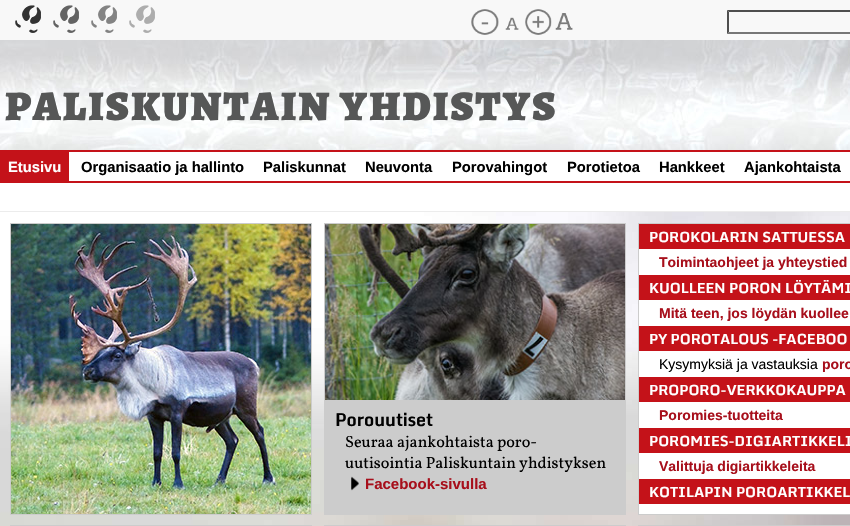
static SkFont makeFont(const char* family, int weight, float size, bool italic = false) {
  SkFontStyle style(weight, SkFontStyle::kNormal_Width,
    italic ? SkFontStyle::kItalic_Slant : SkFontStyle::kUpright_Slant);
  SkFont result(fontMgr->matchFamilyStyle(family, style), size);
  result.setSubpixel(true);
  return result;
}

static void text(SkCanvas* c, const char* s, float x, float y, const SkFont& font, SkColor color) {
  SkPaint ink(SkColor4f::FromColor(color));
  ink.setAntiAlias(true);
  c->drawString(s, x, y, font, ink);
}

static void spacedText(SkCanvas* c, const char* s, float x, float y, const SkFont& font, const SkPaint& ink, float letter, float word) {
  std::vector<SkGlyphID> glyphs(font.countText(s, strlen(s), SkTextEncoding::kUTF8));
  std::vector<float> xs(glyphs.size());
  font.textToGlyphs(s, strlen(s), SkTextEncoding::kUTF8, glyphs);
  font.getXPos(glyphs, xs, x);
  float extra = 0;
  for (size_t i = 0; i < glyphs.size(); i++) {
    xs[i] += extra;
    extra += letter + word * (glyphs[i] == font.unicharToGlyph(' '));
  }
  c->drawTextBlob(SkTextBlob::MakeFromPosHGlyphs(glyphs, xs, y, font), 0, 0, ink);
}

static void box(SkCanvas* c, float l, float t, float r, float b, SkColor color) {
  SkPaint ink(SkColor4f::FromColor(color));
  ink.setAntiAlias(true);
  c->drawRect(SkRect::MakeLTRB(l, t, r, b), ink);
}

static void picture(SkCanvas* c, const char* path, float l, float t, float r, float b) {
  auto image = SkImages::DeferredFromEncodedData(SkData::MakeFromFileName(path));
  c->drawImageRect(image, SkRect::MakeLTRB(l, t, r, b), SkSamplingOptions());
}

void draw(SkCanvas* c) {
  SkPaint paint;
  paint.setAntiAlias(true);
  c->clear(0xffffffff);
  picture(c, "img_01.png", 0, 212, 850, 526);
  box(c, 0, 0, 850, 40, 0xfff8f8f8);
  picture(c, "img_02.png", 15, 5, 41, 33);
  picture(c, "img_03.png", 53, 5, 79, 33);
  picture(c, "img_04.png", 91, 5, 117, 33);
  picture(c, "img_05.png", 129, 5, 155, 33);
  picture(c, "img_06.png", 471, 9, 519, 35);
  picture(c, "img_07.png", 525, 9, 573, 35);
  paint.setColor(0xff4f4f4f);
  c->drawPath(SkPathBuilder().moveTo(727, 10).lineTo(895, 10).lineTo(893, 12).lineTo(729, 12).close().detach(), paint);
  paint.setColor(0xff767676);
  c->drawPath(SkPathBuilder().moveTo(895, 34).lineTo(727, 34).lineTo(729, 32).lineTo(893, 32).close().detach(), paint);
  paint.setColor(0xff4f4f4f);
  c->drawPath(SkPathBuilder().moveTo(727, 34).lineTo(727, 10).lineTo(729, 12).lineTo(729, 32).close().detach(), paint);
  picture(c, "img_08.png", 0, 40, 850, 150);
  SkFont face1 = makeFont("Alegreya", 900, 42);
  paint.setColor(0xff565757);
  spacedText(c, "PALISKUNTAIN YHDISTYS", 5, 120, face1, paint, 2, 0);
  box(c, 0, 150, 850, 152, 0xffc41219);
  box(c, 0, 152, 69, 181, 0xffc41219);
  SkFont face2 = makeFont("Liberation Sans", 700, 14.75f);
  text(c, "Etusivu", 8, 172, face2, 0xffffffff);
  text(c, "Organisaatio ja hallinto", 81, 172, face2, 0xff000000);
  text(c, "Paliskunnat", 263, 172, face2, 0xff000000);
  text(c, "Neuvonta", 365, 172, face2, 0xff000000);
  text(c, "Porovahingot", 452, 172, face2, 0xff000000);
  text(c, "Porotietoa", 567, 172, face2, 0xff000000);
  text(c, "Hankkeet", 659, 172, face2, 0xff000000);
  text(c, "Ajankohtaista", 744, 172, face2, 0xff000000);
  box(c, 0, 181, 850, 183, 0xffc41219);
  box(c, 0, 211, 850, 212, 0xffececec);
  picture(c, "img_09.png", 11, 224, 311, 514);
  paint.setStyle(SkPaint::kStroke_Style);
  paint.setStrokeWidth(1);
  paint.setColor(0xffcccccc);
  c->drawRect(SkRect::MakeLTRB(10.5f, 223.5f, 311.5f, 514.5f), paint);
  box(c, 324, 223, 626, 515, 0xffcccccc);
  picture(c, "img_10.png", 325, 224, 625, 400);
  SkFont face3 = makeFont("Monda", 700, 17.75f);
  text(c, "Porouutiset", 335, 426, face3, 0xff000000);
  SkFont face4 = makeFont("Vollkorn", 400, 16.2f);
  text(c, "Seuraa ajankohtaista poro-", 345, 447, face4, 0xff000000);
  text(c, "uutisointia Paliskuntain yhdistyksen", 345, 468, face4, 0xff000000);
  picture(c, "img_11.png", 351, 476, 359, 491);
  SkFont face5 = makeFont("Liberation Sans", 700, 15);
  text(c, "Facebook-sivulla", 365, 489, face5, 0xffa70f1b);
  box(c, 639, 249, 850, 514, 0xffffffff);
  c->drawRect(SkRect::MakeLTRB(638.5f, 223.5f, 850.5f, 514.5f), paint);
  box(c, 639, 224, 850, 249, 0xffc41219);
  SkFont face6 = makeFont("Monda", 700, 14);
  text(c, "POROKOLARIN SATTUESSA", 649, 242, face6, 0xffffffff);
  SkFont face7 = makeFont("Liberation Sans", 700, 14);
  text(c, "Toimintaohjeet ja yhteystied", 659, 267, face7, 0xffa70f1b);
  box(c, 639, 275, 850, 300, 0xffc41219);
  text(c, "KUOLLEEN PORON LÖYTÄMI", 649, 293, face6, 0xffffffff);
  text(c, "Mitä teen, jos löydän kuollee", 659, 318, face7, 0xffa70f1b);
  box(c, 639, 326, 850, 351, 0xffc41219);
  text(c, "PY POROTALOUS -FACEBOO", 649, 344, face6, 0xffffffff);
  SkFont face8 = makeFont("Liberation Sans", 400, 14);
  text(c, "Kysymyksiä ja vastauksia", 659, 369, face8, 0xff000000);
  text(c, "poro", 822, 369, face7, 0xffa70f1b);
  box(c, 639, 377, 850, 402, 0xffc41219);
  text(c, "PROPORO-VERKKOKAUPPA", 649, 395, face6, 0xffffffff);
  text(c, "Poromies-tuotteita", 659, 420, face7, 0xffa70f1b);
  box(c, 639, 428, 850, 453, 0xffc41219);
  text(c, "POROMIES-DIGIARTIKKELI", 649, 446, face6, 0xffffffff);
  text(c, "Valittuja digiartikkeleita", 659, 471, face7, 0xffa70f1b);
  box(c, 639, 479, 850, 504, 0xffc41219);
  text(c, "KOTILAPIN POROARTIKKEL", 649, 497, face6, 0xffffffff);
  c->drawRect(SkRect::MakeLTRB(10.5f, 525.5f, 311.5f, 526.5f), paint);
  c->drawRect(SkRect::MakeLTRB(324.5f, 525.5f, 625.5f, 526.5f), paint);
  c->drawRect(SkRect::MakeLTRB(638.5f, 525.5f, 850.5f, 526.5f), paint);
}
